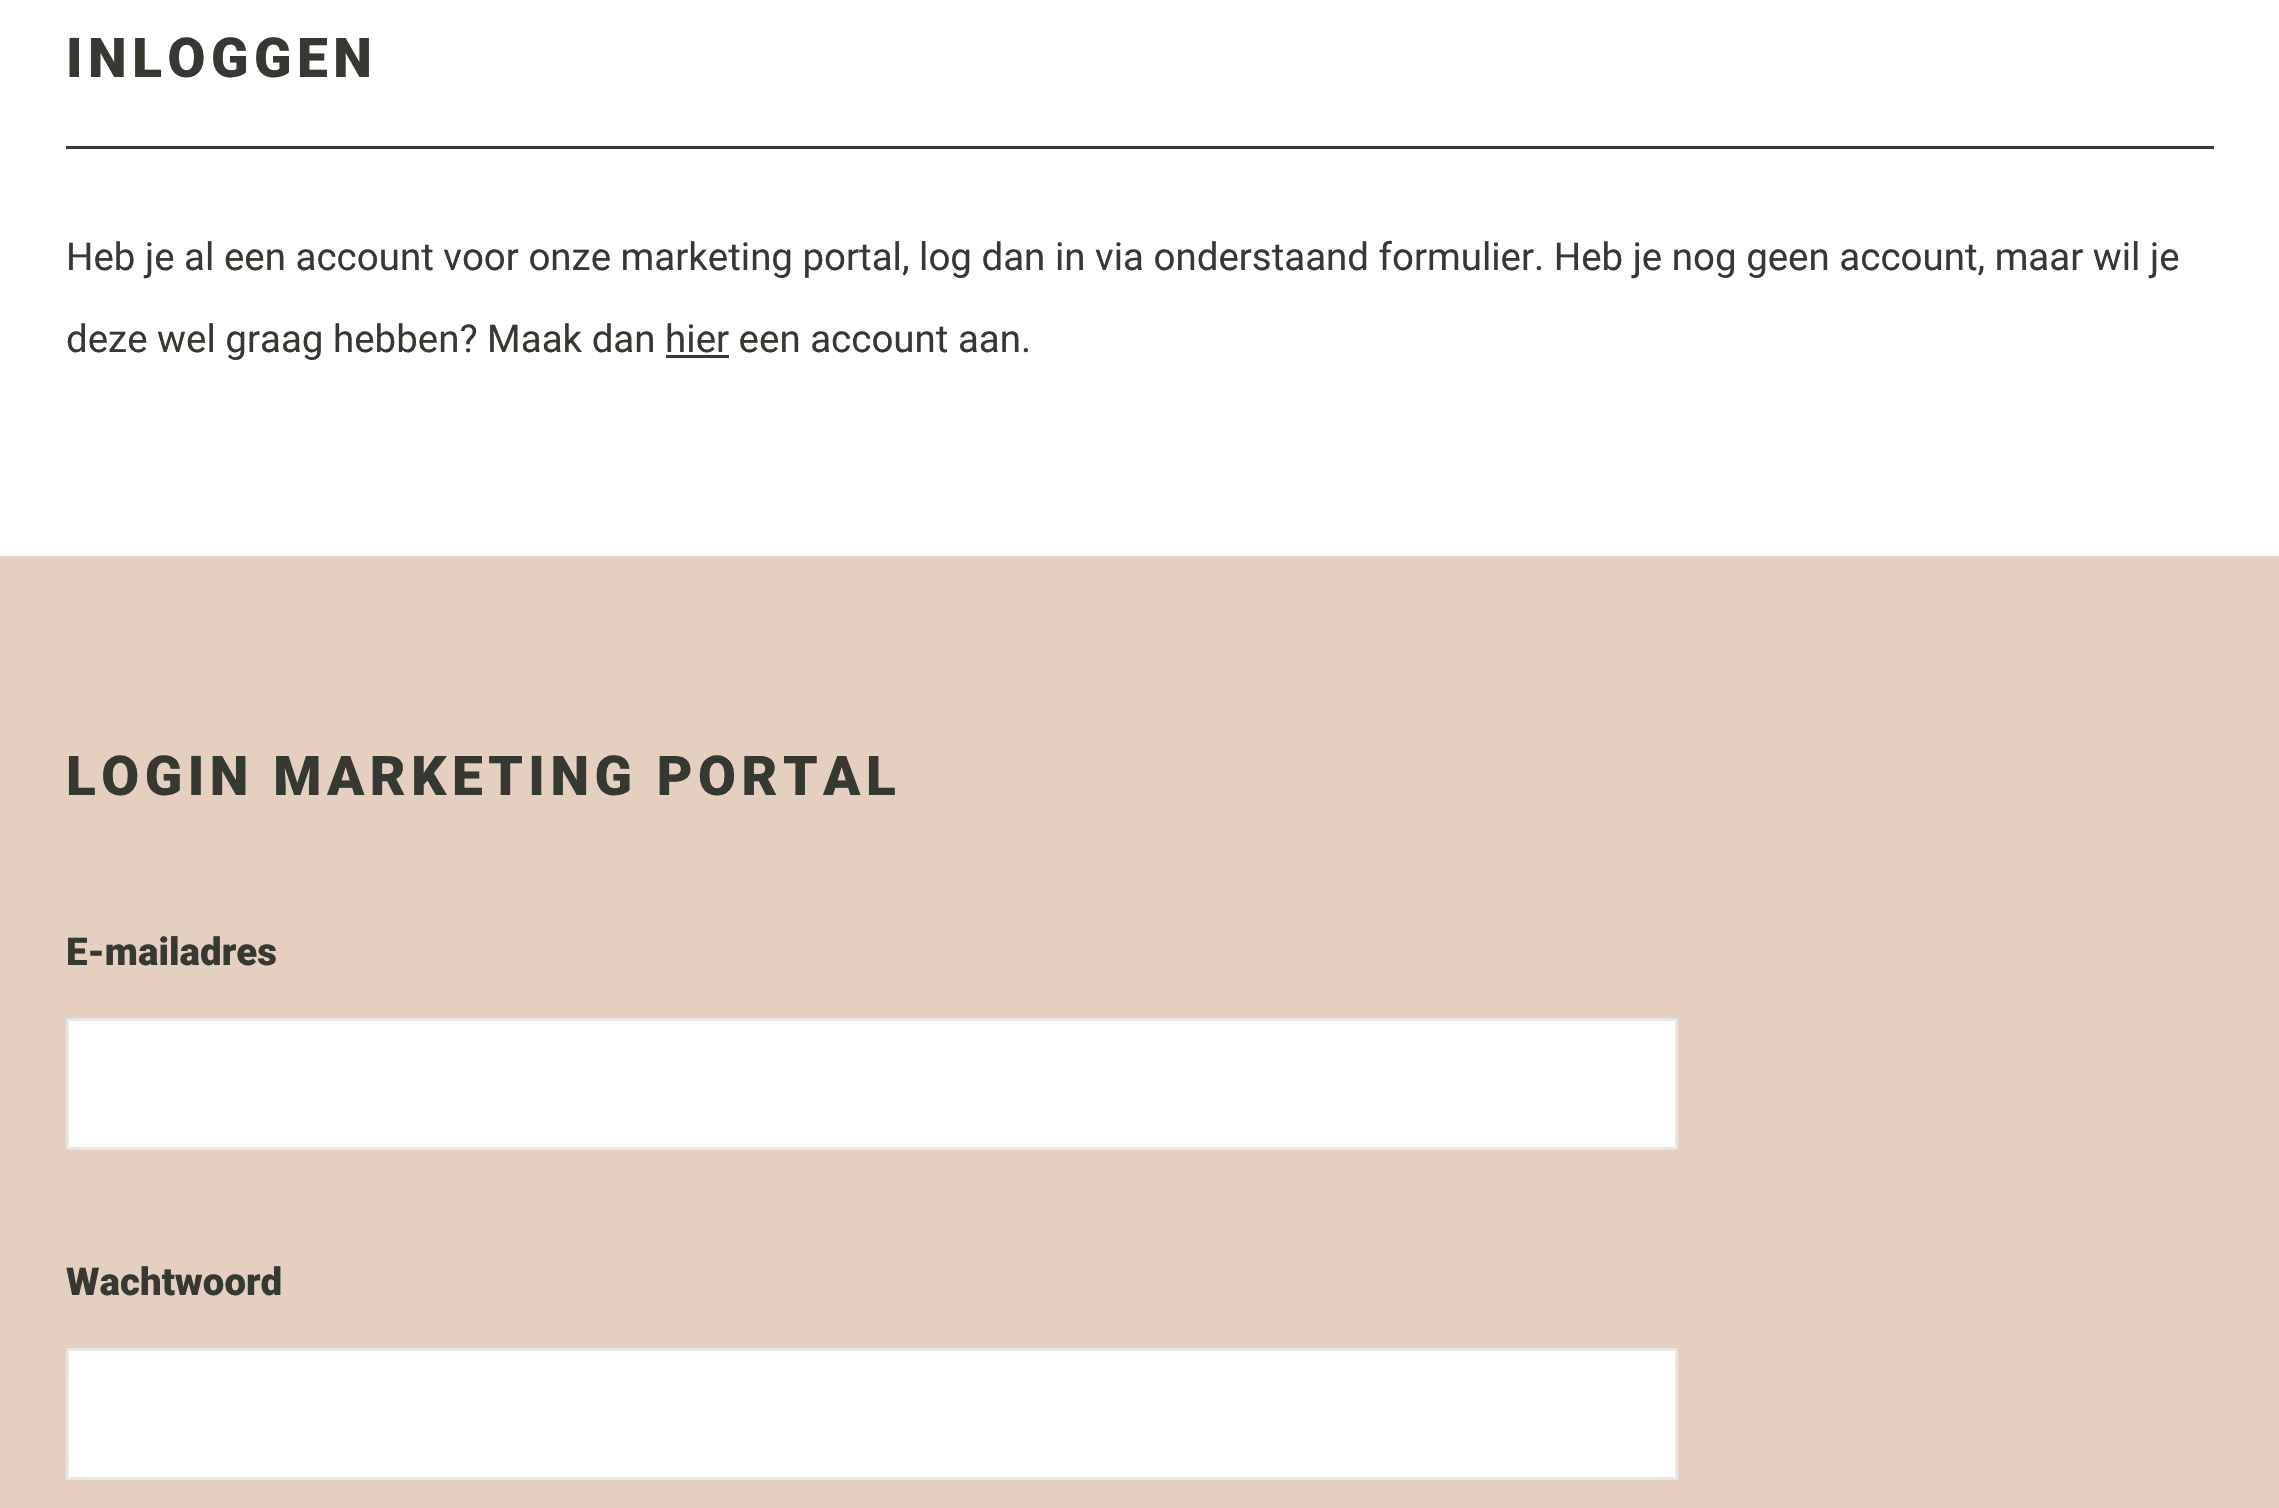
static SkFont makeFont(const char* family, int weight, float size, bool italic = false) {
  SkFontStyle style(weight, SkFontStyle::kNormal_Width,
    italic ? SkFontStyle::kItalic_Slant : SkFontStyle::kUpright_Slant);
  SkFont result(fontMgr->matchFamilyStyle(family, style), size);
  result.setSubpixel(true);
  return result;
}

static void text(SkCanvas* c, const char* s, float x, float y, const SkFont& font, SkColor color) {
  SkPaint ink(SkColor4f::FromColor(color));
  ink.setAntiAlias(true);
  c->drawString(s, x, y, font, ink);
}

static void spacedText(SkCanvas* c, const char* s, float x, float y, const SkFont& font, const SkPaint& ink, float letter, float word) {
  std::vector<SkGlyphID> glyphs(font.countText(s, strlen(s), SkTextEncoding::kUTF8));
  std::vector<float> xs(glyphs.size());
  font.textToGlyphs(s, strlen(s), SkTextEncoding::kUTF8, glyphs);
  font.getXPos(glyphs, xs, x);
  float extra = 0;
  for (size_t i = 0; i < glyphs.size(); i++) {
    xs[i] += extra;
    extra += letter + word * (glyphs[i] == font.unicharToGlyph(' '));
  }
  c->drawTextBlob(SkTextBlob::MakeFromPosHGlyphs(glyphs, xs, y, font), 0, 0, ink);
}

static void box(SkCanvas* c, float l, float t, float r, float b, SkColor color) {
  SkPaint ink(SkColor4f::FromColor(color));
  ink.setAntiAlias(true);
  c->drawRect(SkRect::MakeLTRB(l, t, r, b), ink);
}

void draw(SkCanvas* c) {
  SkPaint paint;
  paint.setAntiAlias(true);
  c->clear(0xffffffff);
  box(c, 66, 146, 2214, 149, 0xff363931);
  SkFont face1 = makeFont("Roboto", 900, 55);
  paint.setColor(0xff363931);
  spacedText(c, "INLOGGEN", 66, 77, face1, paint, 5.5f, 0);
  SkFont face2 = makeFont("Roboto", 400, 38.5f);
  text(c, "Heb je al een account voor onze marketing portal, log dan in via onderstaand formulier. Heb je nog geen account, maar wil je", 66, 270, face2, 0xff363931);
  text(c, "deze wel graag hebben? Maak dan hier een account aan.", 66, 352, face2, 0xff363931);
  box(c, 666, 355, 729, 358, 0xff363931);
  box(c, 0, 556, 2279, 1508, 0xffe5cfc0);
  spacedText(c, "LOGIN MARKETING PORTAL", 66, 795, face1, paint, 5.5f, 0);
  SkFont face3 = makeFont("Roboto", 900, 38.5f);
  text(c, "E-mailadres", 66, 965, face3, 0xff363931);
  paint.setColor(0xffffffff);
  c->drawRect(SkRect::MakeLTRB(67.5f, 1019.5f, 1676.5f, 1148.5f), paint);
  paint.setStyle(SkPaint::kStroke_Style);
  paint.setStrokeWidth(3);
  paint.setColor(0xffe6e6e6);
  c->drawRect(SkRect::MakeLTRB(67.5f, 1019.5f, 1676.5f, 1148.5f), paint);
  text(c, "Wachtwoord", 66, 1295, face3, 0xff363931);
  paint.setStyle(SkPaint::kFill_Style);
  paint.setColor(0xffffffff);
  c->drawRect(SkRect::MakeLTRB(67.5f, 1349.5f, 1676.5f, 1478.5f), paint);
  paint.setStyle(SkPaint::kStroke_Style);
  paint.setColor(0xffe6e6e6);
  c->drawRect(SkRect::MakeLTRB(67.5f, 1349.5f, 1676.5f, 1478.5f), paint);
}
